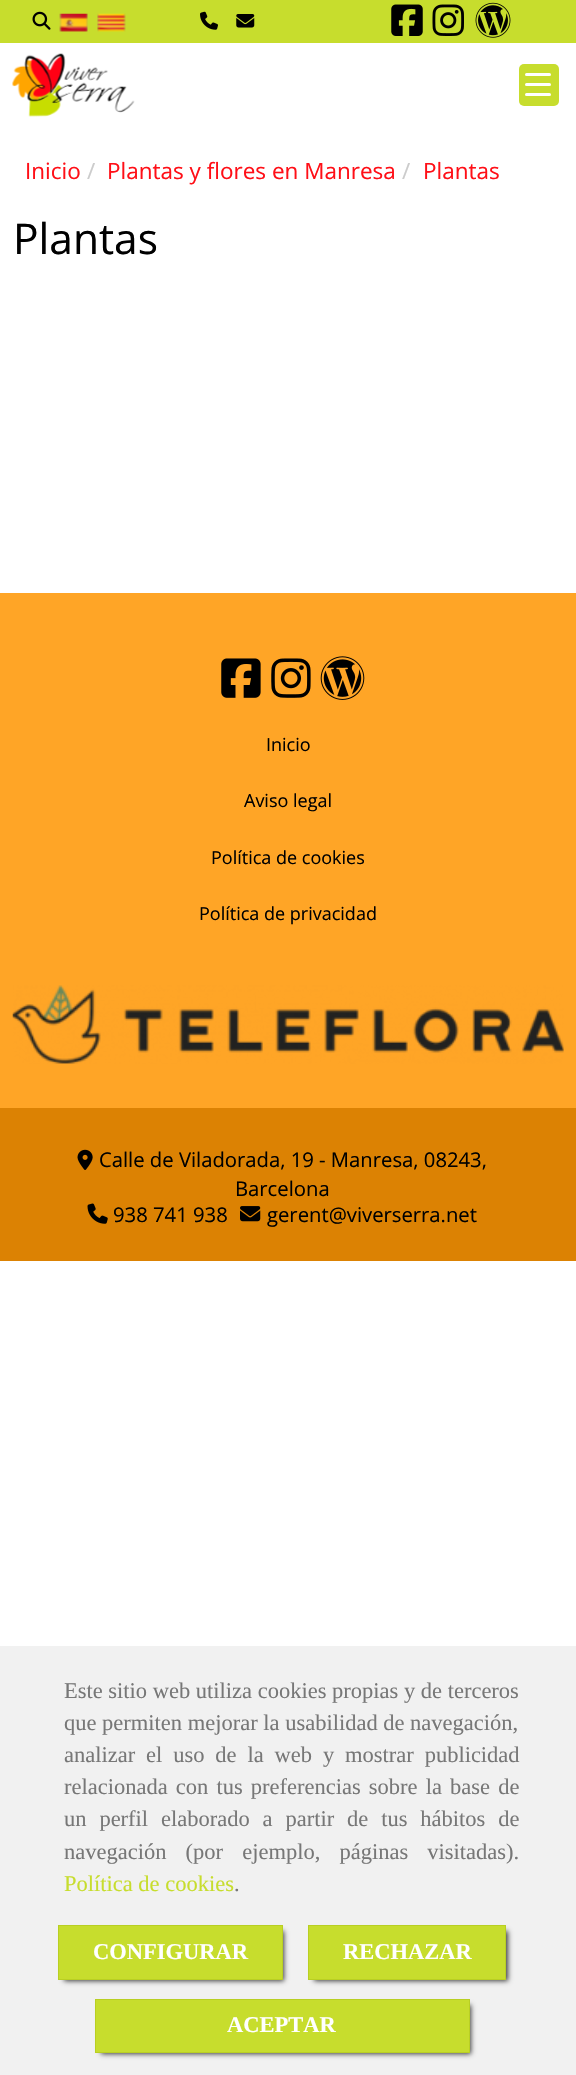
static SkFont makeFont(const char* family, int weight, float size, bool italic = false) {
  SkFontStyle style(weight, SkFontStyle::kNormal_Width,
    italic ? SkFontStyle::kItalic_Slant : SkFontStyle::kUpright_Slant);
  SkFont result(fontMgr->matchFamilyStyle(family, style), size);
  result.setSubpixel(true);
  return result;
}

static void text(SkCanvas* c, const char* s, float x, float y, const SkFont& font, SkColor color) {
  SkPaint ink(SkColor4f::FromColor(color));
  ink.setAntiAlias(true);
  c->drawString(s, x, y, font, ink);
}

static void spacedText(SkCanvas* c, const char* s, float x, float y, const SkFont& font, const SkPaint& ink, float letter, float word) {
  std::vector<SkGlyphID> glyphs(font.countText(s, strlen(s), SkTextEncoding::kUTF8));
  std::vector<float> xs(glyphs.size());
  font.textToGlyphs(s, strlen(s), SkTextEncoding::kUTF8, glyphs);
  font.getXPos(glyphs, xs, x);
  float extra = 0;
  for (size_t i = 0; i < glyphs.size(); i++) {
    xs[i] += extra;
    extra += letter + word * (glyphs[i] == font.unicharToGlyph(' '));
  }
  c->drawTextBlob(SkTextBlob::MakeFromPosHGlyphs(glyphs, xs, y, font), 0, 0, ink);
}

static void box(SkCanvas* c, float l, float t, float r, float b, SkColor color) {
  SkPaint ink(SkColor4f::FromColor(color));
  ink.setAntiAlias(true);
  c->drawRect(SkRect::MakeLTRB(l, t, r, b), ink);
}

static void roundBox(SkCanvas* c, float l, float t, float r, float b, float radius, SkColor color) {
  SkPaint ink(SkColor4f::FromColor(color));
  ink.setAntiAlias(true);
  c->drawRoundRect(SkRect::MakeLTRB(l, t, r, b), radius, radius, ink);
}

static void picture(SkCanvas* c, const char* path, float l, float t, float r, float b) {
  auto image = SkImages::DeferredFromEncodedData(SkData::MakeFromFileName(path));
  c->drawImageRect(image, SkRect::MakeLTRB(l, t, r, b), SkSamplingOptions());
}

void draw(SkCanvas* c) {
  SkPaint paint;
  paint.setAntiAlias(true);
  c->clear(0xffffffff);
  box(c, 0, 0, 576, 43, 0xffc7dd2d);
  picture(c, "img_01.png", 32, 11, 51, 30);
  picture(c, "img_02.png", 59, 13, 88, 32);
  picture(c, "img_03.png", 97, 13, 126, 32);
  picture(c, "img_04.png", 200, 11, 218, 30);
  picture(c, "img_05.png", 236, 14, 255, 28);
  picture(c, "img_06.png", 391, 4, 423, 36);
  picture(c, "img_07.png", 432, 4, 464, 36);
  picture(c, "img_08.png", 475, 2, 511, 38);
  picture(c, "img_09.png", 12, 53, 135, 117);
  roundBox(c, 519, 64, 559, 106, 5, 0xffc7dd2d);
  roundBox(c, 525, 83, 551, 86, 1.5f, 0xffffffff);
  roundBox(c, 525, 73, 551, 76, 1.5f, 0xffffffff);
  roundBox(c, 525, 93, 551, 96, 1.5f, 0xffffffff);
  SkFont face1 = makeFont("Open Sans", 400, 22.5f);
  text(c, "Inicio", 25, 179, face1, 0xffff0f17);
  text(c, "/", 87, 179, face1, 0xffcccccc);
  text(c, "Plantas y flores en Manresa", 107, 179, face1, 0xffff0f17);
  text(c, "/", 402, 179, face1, 0xffcccccc);
  text(c, "Plantas", 423, 179, face1, 0xffff0f17);
  SkFont face2 = makeFont("Open Sans", 400, 42.5f);
  text(c, "Plantas", 13, 254, face2, 0xff000000);
  box(c, 0, 593, 576, 1108, 0xffffa526);
  picture(c, "img_10.png", 221, 658, 261, 698);
  picture(c, "img_11.png", 271, 658, 311, 698);
  picture(c, "img_12.png", 320, 656, 365, 700);
  SkFont face3 = makeFont("Open Sans", 400, 18);
  text(c, "Inicio", 266, 751, face3, 0xff000000);
  text(c, "Aviso legal", 244, 807, face3, 0xff000000);
  text(c, "Política de cookies", 211, 864, face3, 0xff000000);
  text(c, "Política de privacidad", 199, 920, face3, 0xff000000);
  picture(c, "img_13.png", 12, 985, 564, 1064);
  box(c, 0, 1108, 576, 1261, 0xffdc8203);
  picture(c, "img_14.png", 77, 1149, 93, 1170);
  SkFont face4 = makeFont("Open Sans", 400, 20.25f);
  text(c, "Calle de Viladorada, 19 - Manresa, 08243,", 99, 1167, face4, 0xff000000);
  text(c, "Barcelona", 235, 1196, face4, 0xff000000);
  picture(c, "img_15.png", 87, 1203, 108, 1224);
  text(c, "938 741 938", 113, 1222, face4, 0xff000000);
  picture(c, "img_16.png", 240, 1206, 261, 1222);
  text(c, "gerent@viverserra.net", 267, 1222, face4, 0xff000000);
  box(c, 0, 1646, 576, 2075, 0xfff1f1f1);
  SkFont face5 = makeFont("Liberation Serif", 400, 22.5f);
  text(c, "Este sitio web utiliza cookies propias y de terceros", 64, 1698, face5, 0xff777777);
  text(c, "que permiten mejorar la usabilidad de navegación,", 64, 1730, face5, 0xff777777);
  paint.setColor(0xff777777);
  spacedText(c, "analizar el uso de la web y mostrar publicidad", 64, 1762, face5, paint, 0, 5.25f);
  spacedText(c, "relacionada con tus preferencias sobre la base de", 64, 1794, face5, paint, 0, 2.5f);
  spacedText(c, "un perfil elaborado a partir de tus hábitos de", 64, 1826, face5, paint, 0, 7.25f);
  spacedText(c, "navegación (por ejemplo, páginas visitadas).", 64, 1859, face5, paint, 0, 13.5f);
  text(c, "Política de cookies", 64, 1891, face5, 0xffc7dd2d);
  text(c, ".", 234, 1891, face5, 0xff777777);
  paint.setColor(0xbf000000);
  paint.setMaskFilter(SkMaskFilter::MakeBlur(kNormal_SkBlurStyle, 2.5f));
  c->drawRect(SkRect::MakeLTRB(64, 1931, 284, 1981), paint);
  paint.setMaskFilter(nullptr);
  paint.setColor(0xffc7dd2d);
  c->drawRect(SkRect::MakeLTRB(58.5f, 1925.5f, 282.5f, 1979.5f), paint);
  paint.setStyle(SkPaint::kStroke_Style);
  paint.setStrokeWidth(1);
  paint.setColor(0xffb9cf22);
  c->drawRect(SkRect::MakeLTRB(58.5f, 1925.5f, 282.5f, 1979.5f), paint);
  SkFont face6 = makeFont("Liberation Serif", 700, 22.5f);
  text(c, "CONFIGURAR", 93, 1959, face6, 0xffffffff);
  paint.setStyle(SkPaint::kFill_Style);
  paint.setColor(0xbf000000);
  paint.setMaskFilter(SkMaskFilter::MakeBlur(kNormal_SkBlurStyle, 2.5f));
  c->drawRect(SkRect::MakeLTRB(314, 1931, 508, 1981), paint);
  paint.setMaskFilter(nullptr);
  paint.setColor(0xffc7dd2d);
  c->drawRect(SkRect::MakeLTRB(308.5f, 1925.5f, 505.5f, 1979.5f), paint);
  paint.setStyle(SkPaint::kStroke_Style);
  paint.setColor(0xffb9cf22);
  c->drawRect(SkRect::MakeLTRB(308.5f, 1925.5f, 505.5f, 1979.5f), paint);
  text(c, "RECHAZAR", 343, 1959, face6, 0xffffffff);
  paint.setStyle(SkPaint::kFill_Style);
  paint.setColor(0xbf000000);
  paint.setMaskFilter(SkMaskFilter::MakeBlur(kNormal_SkBlurStyle, 2.5f));
  c->drawRect(SkRect::MakeLTRB(101, 2005, 471, 2054), paint);
  paint.setMaskFilter(nullptr);
  paint.setColor(0xffc7dd2d);
  c->drawRect(SkRect::MakeLTRB(95.5f, 1999.5f, 469.5f, 2052.5f), paint);
  paint.setStyle(SkPaint::kStroke_Style);
  paint.setColor(0xffb9cf22);
  c->drawRect(SkRect::MakeLTRB(95.5f, 1999.5f, 469.5f, 2052.5f), paint);
  text(c, "ACEPTAR", 227, 2032, face6, 0xffffffff);
}
